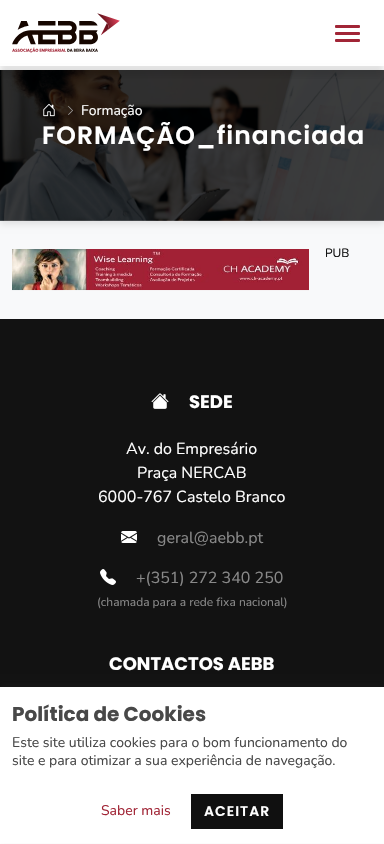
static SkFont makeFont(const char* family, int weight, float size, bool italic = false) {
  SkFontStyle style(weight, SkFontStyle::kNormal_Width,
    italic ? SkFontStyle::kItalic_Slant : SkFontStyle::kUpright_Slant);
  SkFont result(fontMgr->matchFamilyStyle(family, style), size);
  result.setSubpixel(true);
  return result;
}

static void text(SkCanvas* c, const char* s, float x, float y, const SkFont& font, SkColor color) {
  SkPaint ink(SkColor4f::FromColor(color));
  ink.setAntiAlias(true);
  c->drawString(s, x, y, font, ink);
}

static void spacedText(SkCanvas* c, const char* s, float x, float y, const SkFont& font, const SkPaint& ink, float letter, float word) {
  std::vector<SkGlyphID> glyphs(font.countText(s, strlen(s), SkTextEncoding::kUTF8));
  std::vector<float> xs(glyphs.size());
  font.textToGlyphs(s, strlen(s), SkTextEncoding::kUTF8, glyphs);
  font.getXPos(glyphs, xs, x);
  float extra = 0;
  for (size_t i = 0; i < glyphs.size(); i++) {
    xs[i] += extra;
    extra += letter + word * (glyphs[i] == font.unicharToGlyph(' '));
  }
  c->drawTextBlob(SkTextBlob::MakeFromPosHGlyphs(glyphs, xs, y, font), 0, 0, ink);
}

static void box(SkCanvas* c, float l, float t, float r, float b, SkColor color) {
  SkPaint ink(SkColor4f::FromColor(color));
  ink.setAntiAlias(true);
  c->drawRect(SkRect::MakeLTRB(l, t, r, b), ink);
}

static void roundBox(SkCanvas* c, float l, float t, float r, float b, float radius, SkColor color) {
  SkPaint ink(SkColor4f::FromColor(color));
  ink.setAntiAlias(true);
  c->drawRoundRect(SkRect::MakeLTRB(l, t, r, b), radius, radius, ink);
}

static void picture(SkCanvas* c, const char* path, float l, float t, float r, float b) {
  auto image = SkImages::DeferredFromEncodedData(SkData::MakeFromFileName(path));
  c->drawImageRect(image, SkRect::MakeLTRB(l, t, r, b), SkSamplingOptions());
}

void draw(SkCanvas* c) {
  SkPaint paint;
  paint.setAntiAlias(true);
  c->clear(0xffffffff);
  box(c, 0, 221, 384, 319, 0xfff8f9fa);
  paint.setColor(0x1a000000);
  paint.setMaskFilter(SkMaskFilter::MakeBlur(kNormal_SkBlurStyle, 3.5f));
  c->drawRect(SkRect::MakeLTRB(0, 73, 384, 224), paint);
  paint.setMaskFilter(nullptr);
  picture(c, "img_02.png", 0, 70, 384, 221);
  c->save();
  c->clipRect(SkRect::MakeLTRB(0, 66, 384, 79));
  paint.setMaskFilter(SkMaskFilter::MakeBlur(kNormal_SkBlurStyle, 3.5f));
  c->drawRect(SkRect::MakeLTRB(0, 10, 384, 76), paint);
  paint.setMaskFilter(nullptr);
  c->restore();
  picture(c, "img_01.png", 12, 13, 120, 53);
  roundBox(c, 335, 25, 360, 28, 1, 0xffa12536);
  roundBox(c, 335, 32, 360, 35, 1, 0xffa12536);
  roundBox(c, 335, 39, 360, 42, 1, 0xffa12536);
  picture(c, "img_03.png", 43, 103, 55, 117);
  picture(c, "img_04.png", 68, 106, 73, 115);
  SkFont face1 = makeFont("Nunito", 200, 14);
  text(c, "Formação", 81, 115, face1, 0xffffffff);
  SkFont face2 = makeFont("Poppins", 600, 25);
  paint.setColor(0xffffffff);
  spacedText(c, "FORMAÇÃO_financiada", 42, 144, face2, paint, 1, 0);
  picture(c, "img_05.png", 12, 249, 309, 291);
  SkFont face3 = makeFont("Nunito", 200, 12);
  text(c, "PUB", 325, 257, face3, 0xff101010);
  box(c, 0, 319, 384, 687, 0xff121212);
  picture(c, "img_06.png", 151, 393, 169, 409);
  SkFont face4 = makeFont("Poppins", 700, 18);
  text(c, "SEDE", 189, 408, face4, 0xffffffff);
  SkFont face5 = makeFont("Nunito", 200, 16);
  text(c, "Av. do Empresário", 126, 454, face5, 0xffffffff);
  text(c, "Praça NERCAB", 137, 478, face5, 0xffffffff);
  text(c, "6000-767 Castelo Branco", 98, 502, face5, 0xffffffff);
  picture(c, "img_07.png", 121, 531, 137, 543);
  text(c, "geral@aebb.pt", 157, 543, face5, 0xff898989);
  picture(c, "img_08.png", 100, 569, 116, 585);
  text(c, "+(351) 272 340 250", 136, 583, face5, 0xff898989);
  text(c, "(chamada para a rede fixa nacional)", 97, 606, face3, 0xff898989);
  text(c, "CONTACTOS AEBB", 109, 670, face4, 0xffffffff);
  paint.setColor(0x1a3e3e3e);
  paint.setMaskFilter(SkMaskFilter::MakeBlur(kNormal_SkBlurStyle, 3));
  c->drawRect(SkRect::MakeLTRB(0, 683, 384, 840), paint);
  paint.setMaskFilter(nullptr);
  box(c, 0, 687, 384, 843, 0xffffffff);
  SkFont face6 = makeFont("Poppins", 700, 20);
  text(c, "Política de Cookies", 12, 721, face6, 0xff484848);
  text(c, "Este site utiliza cookies para o bom funcionamento do", 12, 747, face1, 0xff484848);
  text(c, "site e para otimizar a sua experiência de navegação.", 12, 765, face1, 0xff484848);
  text(c, "Saber mais", 101, 815, face1, 0xffa12536);
  box(c, 191, 794, 283, 829, 0xff101010);
  SkFont face7 = makeFont("Poppins", 600, 14);
  paint.setColor(0xffffffff);
  spacedText(c, "ACEITAR", 204, 816, face7, paint, 1, 0);
}
